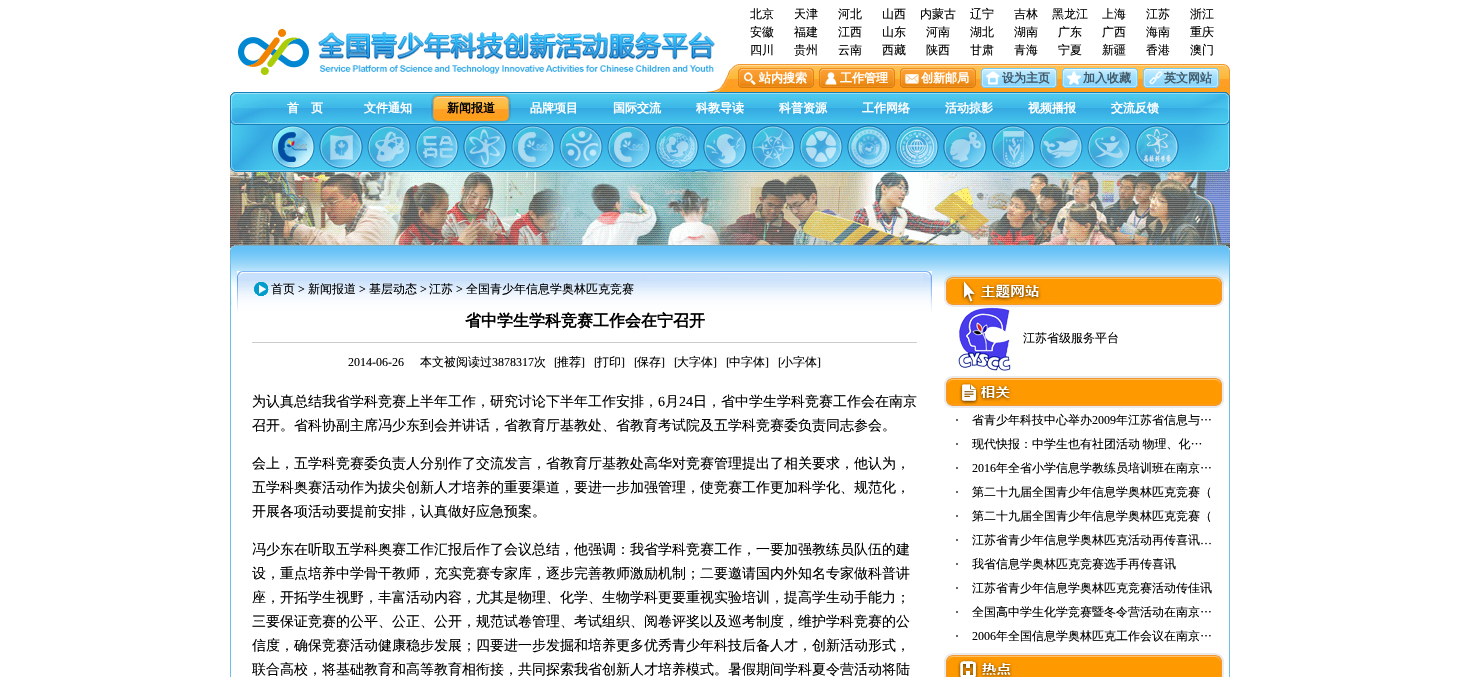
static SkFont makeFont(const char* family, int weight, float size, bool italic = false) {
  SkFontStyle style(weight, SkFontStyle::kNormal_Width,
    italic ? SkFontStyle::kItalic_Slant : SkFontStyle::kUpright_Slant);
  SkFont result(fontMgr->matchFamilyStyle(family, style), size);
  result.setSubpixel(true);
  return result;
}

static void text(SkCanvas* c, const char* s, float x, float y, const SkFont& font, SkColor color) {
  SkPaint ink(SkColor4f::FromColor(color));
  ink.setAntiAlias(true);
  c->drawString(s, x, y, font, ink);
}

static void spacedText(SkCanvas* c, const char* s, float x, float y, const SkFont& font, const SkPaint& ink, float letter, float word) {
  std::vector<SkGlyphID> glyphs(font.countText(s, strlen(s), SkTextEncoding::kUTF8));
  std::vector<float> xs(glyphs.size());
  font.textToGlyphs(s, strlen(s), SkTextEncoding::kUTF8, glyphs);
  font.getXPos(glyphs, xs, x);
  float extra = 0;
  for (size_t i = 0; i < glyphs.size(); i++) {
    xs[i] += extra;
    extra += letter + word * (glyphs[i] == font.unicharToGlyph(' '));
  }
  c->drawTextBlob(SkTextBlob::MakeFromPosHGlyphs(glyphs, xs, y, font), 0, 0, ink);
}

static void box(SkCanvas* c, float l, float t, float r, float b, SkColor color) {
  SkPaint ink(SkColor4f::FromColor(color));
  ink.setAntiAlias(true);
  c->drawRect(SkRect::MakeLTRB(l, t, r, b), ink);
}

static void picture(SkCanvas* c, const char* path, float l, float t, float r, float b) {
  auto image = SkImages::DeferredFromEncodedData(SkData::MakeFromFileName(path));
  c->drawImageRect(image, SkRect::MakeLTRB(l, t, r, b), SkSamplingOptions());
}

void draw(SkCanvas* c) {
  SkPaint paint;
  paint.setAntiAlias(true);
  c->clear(0xffffffff);
  picture(c, "img_01.png", 238, 29, 715, 75);
  SkFont face1 = makeFont("WenQuanYi Zen Hei", 500, 12);
  text(c, "北京", 750, 18, face1, 0xff000000);
  text(c, "天津", 794, 18, face1, 0xff000000);
  text(c, "河北", 838, 18, face1, 0xff000000);
  text(c, "山西", 882, 18, face1, 0xff000000);
  text(c, "内蒙古", 920, 18, face1, 0xff000000);
  text(c, "辽宁", 970, 18, face1, 0xff000000);
  text(c, "吉林", 1014, 18, face1, 0xff000000);
  text(c, "黑龙江", 1052, 18, face1, 0xff000000);
  text(c, "上海", 1102, 18, face1, 0xff000000);
  text(c, "江苏", 1146, 18, face1, 0xff000000);
  text(c, "浙江", 1190, 18, face1, 0xff000000);
  text(c, "安徽", 750, 36, face1, 0xff000000);
  text(c, "福建", 794, 36, face1, 0xff000000);
  text(c, "江西", 838, 36, face1, 0xff000000);
  text(c, "山东", 882, 36, face1, 0xff000000);
  text(c, "河南", 926, 36, face1, 0xff000000);
  text(c, "湖北", 970, 36, face1, 0xff000000);
  text(c, "湖南", 1014, 36, face1, 0xff000000);
  text(c, "广东", 1058, 36, face1, 0xff000000);
  text(c, "广西", 1102, 36, face1, 0xff000000);
  text(c, "海南", 1146, 36, face1, 0xff000000);
  text(c, "重庆", 1190, 36, face1, 0xff000000);
  text(c, "四川", 750, 54, face1, 0xff000000);
  text(c, "贵州", 794, 54, face1, 0xff000000);
  text(c, "云南", 838, 54, face1, 0xff000000);
  text(c, "西藏", 882, 54, face1, 0xff000000);
  text(c, "陕西", 926, 54, face1, 0xff000000);
  text(c, "甘肃", 970, 54, face1, 0xff000000);
  text(c, "青海", 1014, 54, face1, 0xff000000);
  text(c, "宁夏", 1058, 54, face1, 0xff000000);
  text(c, "新疆", 1102, 54, face1, 0xff000000);
  text(c, "香港", 1146, 54, face1, 0xff000000);
  text(c, "澳门", 1190, 54, face1, 0xff000000);
  picture(c, "img_02.png", 706, 64, 1230, 92);
  picture(c, "img_03.png", 738, 68, 814, 88);
  SkFont face2 = makeFont("WenQuanYi Zen Hei", 700, 12);
  text(c, "站内搜索", 759, 82, face2, 0xffffffff);
  picture(c, "img_04.png", 819, 68, 895, 88);
  text(c, "工作管理", 840, 82, face2, 0xffffffff);
  picture(c, "img_05.png", 900, 68, 976, 88);
  text(c, "创新邮局", 921, 82, face2, 0xffffffff);
  picture(c, "img_06.png", 981, 68, 1057, 88);
  text(c, "设为主页", 1002, 82, face2, 0xff425a68);
  picture(c, "img_07.png", 1062, 68, 1138, 88);
  text(c, "加入收藏", 1083, 82, face2, 0xff425a68);
  picture(c, "img_08.png", 1143, 68, 1219, 88);
  text(c, "英文网站", 1164, 82, face2, 0xff425a68);
  picture(c, "img_09.png", 230, 92, 350, 125);
  picture(c, "img_10.png", 1110, 92, 1230, 125);
  text(c, "首　页", 287, 112, face2, 0xffffffff);
  picture(c, "img_11.png", 350, 92, 428, 125);
  text(c, "文件通知", 364, 112, face2, 0xffffffff);
  picture(c, "img_12.png", 428, 92, 511, 125);
  picture(c, "img_13.png", 431, 94, 511, 123);
  text(c, "新闻报道", 447, 112, face2, 0xff000000);
  picture(c, "img_12.png", 511, 92, 594, 125);
  text(c, "品牌项目", 530, 112, face2, 0xffffffff);
  picture(c, "img_12.png", 594, 92, 677, 125);
  text(c, "国际交流", 613, 112, face2, 0xffffffff);
  picture(c, "img_12.png", 677, 92, 760, 125);
  text(c, "科教导读", 696, 112, face2, 0xffffffff);
  picture(c, "img_12.png", 760, 92, 843, 125);
  text(c, "科普资源", 779, 112, face2, 0xffffffff);
  picture(c, "img_12.png", 843, 92, 926, 125);
  text(c, "工作网络", 862, 112, face2, 0xffffffff);
  picture(c, "img_12.png", 926, 92, 1009, 125);
  text(c, "活动掠影", 945, 112, face2, 0xffffffff);
  picture(c, "img_12.png", 1009, 92, 1092, 125);
  text(c, "视频播报", 1028, 112, face2, 0xffffffff);
  picture(c, "img_14.png", 1092, 92, 1110, 125);
  text(c, "交流反馈", 1111, 112, face2, 0xffffffff);
  picture(c, "img_37.png", 230, 169, 1230, 248);
  picture(c, "img_15.png", 230, 125, 350, 172);
  picture(c, "img_16.png", 1110, 125, 1230, 172);
  picture(c, "img_17.png", 350, 125, 1110, 172);
  picture(c, "img_18.png", 271, 125, 315, 169);
  picture(c, "img_19.png", 319, 125, 363, 169);
  picture(c, "img_20.png", 367, 125, 411, 169);
  picture(c, "img_21.png", 415, 125, 459, 169);
  picture(c, "img_22.png", 463, 125, 507, 169);
  picture(c, "img_23.png", 511, 125, 555, 169);
  picture(c, "img_24.png", 559, 125, 603, 169);
  picture(c, "img_23.png", 607, 125, 651, 169);
  picture(c, "img_25.png", 655, 125, 699, 169);
  picture(c, "img_26.png", 703, 125, 747, 169);
  picture(c, "img_27.png", 751, 125, 795, 169);
  picture(c, "img_28.png", 799, 125, 843, 169);
  picture(c, "img_29.png", 847, 125, 891, 169);
  picture(c, "img_30.png", 895, 125, 939, 169);
  picture(c, "img_31.png", 943, 125, 987, 169);
  picture(c, "img_32.png", 991, 125, 1035, 169);
  picture(c, "img_33.png", 1039, 125, 1083, 169);
  picture(c, "img_34.png", 1087, 125, 1131, 169);
  picture(c, "img_35.png", 1135, 125, 1179, 169);
  picture(c, "img_36.png", 679, 169, 723, 172);
  picture(c, "img_38.png", 230, 245, 1230, 265);
  picture(c, "img_39.png", 231, 265, 1229, 306);
  box(c, 1229, 265, 1230, 677, 0xff6ebfe7);
  box(c, 230, 265, 231, 677, 0xff6ebfe7);
  picture(c, "img_40.png", 237, 271, 932, 313);
  picture(c, "img_41.png", 254, 282, 269, 296);
  text(c, "首页", 271, 293, face1, 0xff000000);
  SkFont face3 = makeFont("Liberation Serif", 400, 12);
  text(c, ">", 298, 293, face3, 0xff000000);
  text(c, "新闻报道", 308, 293, face1, 0xff000000);
  text(c, ">", 359, 293, face3, 0xff000000);
  text(c, "基层动态", 369, 293, face1, 0xff000000);
  text(c, ">", 420, 293, face3, 0xff000000);
  text(c, "江苏", 429, 293, face1, 0xff000000);
  text(c, ">", 456, 293, face3, 0xff000000);
  text(c, "全国青少年信息学奥林匹克竞赛", 466, 293, face1, 0xff000000);
  box(c, 252, 342, 917, 343, 0xffcccccc);
  SkFont face4 = makeFont("WenQuanYi Zen Hei", 700, 16);
  text(c, "省中学生学科竞赛工作会在宁召开", 465, 326, face4, 0xff000000);
  text(c, "2014-06-26", 348, 366, face3, 0xff000000);
  text(c, "本文被阅读过", 420, 366, face1, 0xff000000);
  text(c, "3878317", 492, 366, face3, 0xff000000);
  text(c, "次", 534, 366, face1, 0xff000000);
  text(c, "[", 554, 366, face3, 0xff000000);
  text(c, "推荐", 557, 366, face1, 0xff000000);
  text(c, "]", 581, 366, face3, 0xff000000);
  text(c, "[", 594, 366, face3, 0xff000000);
  text(c, "打印", 597, 366, face1, 0xff000000);
  text(c, "]", 621, 366, face3, 0xff000000);
  text(c, "[", 634, 366, face3, 0xff000000);
  text(c, "保存", 637, 366, face1, 0xff000000);
  text(c, "]", 661, 366, face3, 0xff000000);
  text(c, "[", 674, 366, face3, 0xff000000);
  text(c, "大字体", 677, 366, face1, 0xff000000);
  text(c, "]", 713, 366, face3, 0xff000000);
  text(c, "[", 726, 366, face3, 0xff000000);
  text(c, "中字体", 729, 366, face1, 0xff000000);
  text(c, "]", 765, 366, face3, 0xff000000);
  text(c, "[", 778, 366, face3, 0xff000000);
  text(c, "小字体", 781, 366, face1, 0xff000000);
  text(c, "]", 817, 366, face3, 0xff000000);
  SkFont face5 = makeFont("WenQuanYi Zen Hei", 500, 14);
  text(c, "为认真总结我省学科竞赛上半年工作，研究讨论下半年工作安排，", 252, 406, face5, 0xff000000);
  SkFont face6 = makeFont("Liberation Serif", 400, 14);
  text(c, "6", 658, 406, face6, 0xff000000);
  text(c, "月", 665, 406, face5, 0xff000000);
  text(c, "24", 679, 406, face6, 0xff000000);
  text(c, "日，省中学生学科竞赛工作会在南京", 693, 406, face5, 0xff000000);
  text(c, "召开。省科协副主席冯少东到会并讲话，省教育厅基教处、省教育考试院及五学科竞赛委负责同志参会。", 252, 430, face5, 0xff000000);
  text(c, "会上，五学科竞赛委负责人分别作了交流发言，省教育厅基教处高华对竞赛管理提出了相关要求，他认为，", 252, 468, face5, 0xff000000);
  text(c, "五学科奥赛活动作为拔尖创新人才培养的重要渠道，要进一步加强管理，使竞赛工作更加科学化、规范化，", 252, 492, face5, 0xff000000);
  text(c, "开展各项活动要提前安排，认真做好应急预案。", 252, 516, face5, 0xff000000);
  text(c, "冯少东在听取五学科奥赛工作汇报后作了会议总结，他强调：我省学科竞赛工作，一要加强教练员队伍的建", 252, 554, face5, 0xff000000);
  text(c, "设，重点培养中学骨干教师，充实竞赛专家库，逐步完善教师激励机制；二要邀请国内外知名专家做科普讲", 252, 578, face5, 0xff000000);
  text(c, "座，开拓学生视野，丰富活动内容，尤其是物理、化学、生物学科更要重视实验培训，提高学生动手能力；", 252, 602, face5, 0xff000000);
  text(c, "三要保证竞赛的公平、公正、公开，规范试卷管理、考试组织、阅卷评奖以及巡考制度，维护学科竞赛的公", 252, 626, face5, 0xff000000);
  text(c, "信度，确保竞赛活动健康稳步发展；四要进一步发掘和培养更多优秀青少年科技后备人才，创新活动形式，", 252, 650, face5, 0xff000000);
  text(c, "联合高校，将基础教育和高等教育相衔接，共同探索我省创新人才培养模式。暑假期间学科夏令营活动将陆", 252, 674, face5, 0xff000000);
  picture(c, "img_42.png", 944, 275, 1224, 307);
  picture(c, "img_43.png", 958, 307, 1011, 371);
  text(c, "江苏省级服务平台", 1023, 342, face1, 0xff000000);
  picture(c, "img_44.png", 944, 376, 1224, 408);
  text(c, "省青少年科技中心举办", 972, 424, face1, 0xff000000);
  box(c, 956, 419, 958, 421, 0xff666666);
  text(c, "2009", 1092, 424, face3, 0xff000000);
  text(c, "年江苏省信息与…", 1116, 424, face1, 0xff000000);
  paint.setColor(0xff000000);
  spacedText(c, "现代快报：中学生也有社团活动 物理、化…", 972, 448, face1, paint, 0, -1);
  box(c, 956, 443, 958, 445, 0xff666666);
  text(c, "2016", 972, 472, face3, 0xff000000);
  box(c, 956, 467, 958, 469, 0xff666666);
  text(c, "年全省小学信息学教练员培训班在南京…", 996, 472, face1, 0xff000000);
  text(c, "第二十九届全国青少年信息学奥林匹克竞赛（", 972, 496, face1, 0xff000000);
  box(c, 956, 491, 958, 493, 0xff666666);
  text(c, "第二十九届全国青少年信息学奥林匹克竞赛（", 972, 520, face1, 0xff000000);
  box(c, 956, 515, 958, 517, 0xff666666);
  text(c, "江苏省青少年信息学奥林匹克活动再传喜讯", 972, 544, face1, 0xff000000);
  box(c, 956, 539, 958, 541, 0xff666666);
  text(c, "…", 1200, 544, face3, 0xff000000);
  text(c, "我省信息学奥林匹克竞赛选手再传喜讯", 972, 568, face1, 0xff000000);
  box(c, 956, 563, 958, 565, 0xff666666);
  text(c, "江苏省青少年信息学奥林匹克竞赛活动传佳讯", 972, 592, face1, 0xff000000);
  box(c, 956, 587, 958, 589, 0xff666666);
  text(c, "全国高中学生化学竞赛暨冬令营活动在南京…", 972, 616, face1, 0xff000000);
  box(c, 956, 611, 958, 613, 0xff666666);
  text(c, "2006", 972, 640, face3, 0xff000000);
  box(c, 956, 635, 958, 637, 0xff666666);
  text(c, "年全国信息学奥林匹克工作会议在南京…", 996, 640, face1, 0xff000000);
  picture(c, "img_45.png", 944, 653, 1224, 677);
}
